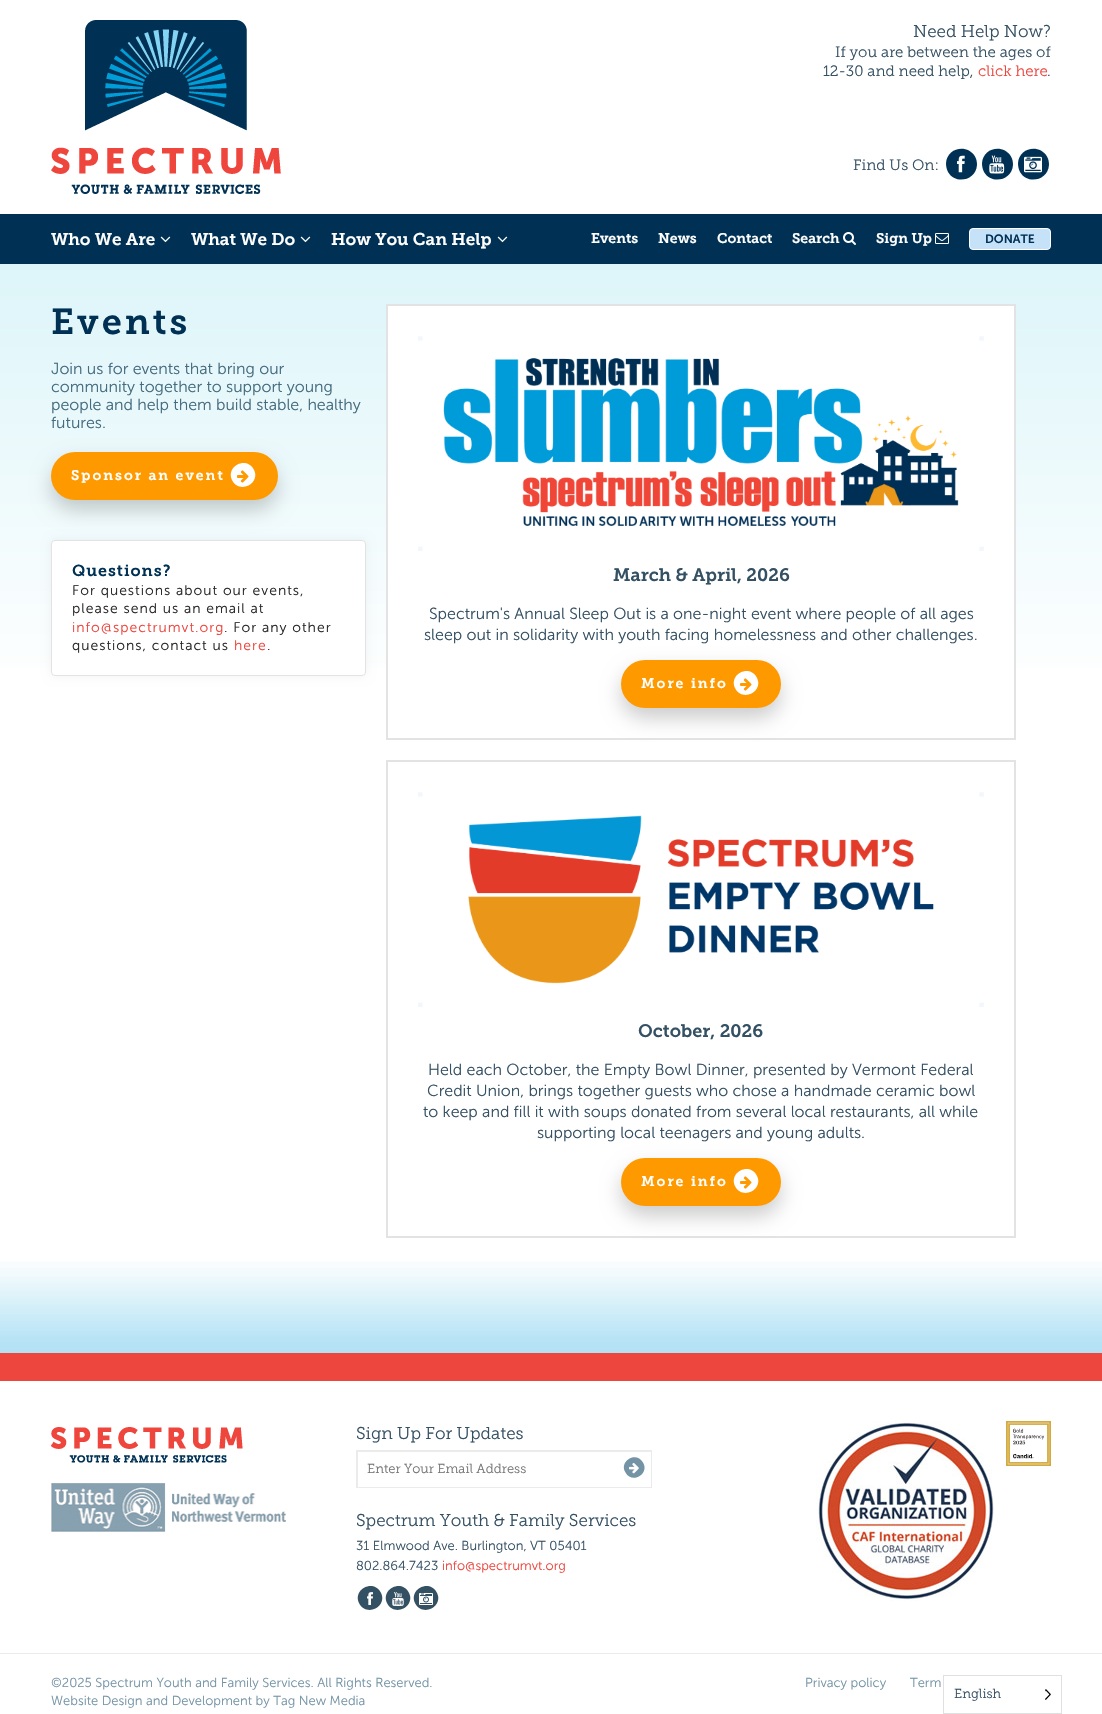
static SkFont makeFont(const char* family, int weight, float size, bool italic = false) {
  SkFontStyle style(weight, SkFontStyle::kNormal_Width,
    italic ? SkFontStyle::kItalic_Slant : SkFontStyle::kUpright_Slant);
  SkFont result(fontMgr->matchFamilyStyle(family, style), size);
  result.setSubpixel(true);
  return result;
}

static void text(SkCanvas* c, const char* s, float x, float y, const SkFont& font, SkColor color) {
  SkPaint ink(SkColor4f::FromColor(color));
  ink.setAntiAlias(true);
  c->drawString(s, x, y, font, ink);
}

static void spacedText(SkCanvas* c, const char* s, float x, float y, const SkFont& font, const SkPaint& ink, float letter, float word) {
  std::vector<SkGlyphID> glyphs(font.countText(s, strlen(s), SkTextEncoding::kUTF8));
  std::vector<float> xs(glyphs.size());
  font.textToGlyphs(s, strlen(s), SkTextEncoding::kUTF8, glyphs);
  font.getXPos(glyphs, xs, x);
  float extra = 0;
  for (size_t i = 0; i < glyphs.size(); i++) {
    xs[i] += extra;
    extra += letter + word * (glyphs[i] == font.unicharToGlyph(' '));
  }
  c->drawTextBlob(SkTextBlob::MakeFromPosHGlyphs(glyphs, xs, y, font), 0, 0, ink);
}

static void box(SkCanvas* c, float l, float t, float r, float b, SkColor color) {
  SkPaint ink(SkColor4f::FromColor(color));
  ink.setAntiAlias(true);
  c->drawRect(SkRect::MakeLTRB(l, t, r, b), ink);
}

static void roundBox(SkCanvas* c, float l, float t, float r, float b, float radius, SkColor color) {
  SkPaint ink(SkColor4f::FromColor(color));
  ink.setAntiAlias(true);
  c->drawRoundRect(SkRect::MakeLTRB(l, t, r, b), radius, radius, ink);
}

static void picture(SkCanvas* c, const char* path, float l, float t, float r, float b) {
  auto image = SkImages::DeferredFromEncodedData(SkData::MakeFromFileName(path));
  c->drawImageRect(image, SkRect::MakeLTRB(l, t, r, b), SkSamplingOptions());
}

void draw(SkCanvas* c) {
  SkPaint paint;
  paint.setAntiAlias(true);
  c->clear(0xffffffff);
  picture(c, "img_01.png", 51, 20, 281, 194);
  SkFont face1 = makeFont("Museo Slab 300", 300, 17);
  text(c, "Need Help Now?", 913, 37, face1, 0xff345063);
  SkFont face2 = makeFont("Museo Slab 300", 300, 15);
  text(c, "If you are between the ages of", 835, 57, face2, 0xff345063);
  text(c, "12-30 and need help,", 823, 76, face2, 0xff345063);
  text(c, "click here", 978, 76, face2, 0xffec463e);
  text(c, ".", 1047, 76, face2, 0xff345063);
  text(c, "Find Us On:", 853, 170, face2, 0xff345063);
  paint.setColor(0xff003154);
  c->drawPath(SkPathBuilder().moveTo(975, 156.5f).cubicTo(976.5f, 159, 977, 162, 977, 165).cubicTo(976, 180.5f, 955.5f, 185, 948, 172).cubicTo(946.5f, 169, 946, 166, 946, 163).cubicTo(947, 148, 967, 143.5f, 975, 156.5f).close().detach(), paint);
  picture(c, "img_02.png", 957, 155, 965, 173);
  c->drawPath(SkPathBuilder().moveTo(1011, 156.5f).cubicTo(1012.5f, 159, 1013, 162, 1013, 165).cubicTo(1012, 180.5f, 991.5f, 185, 984, 172).cubicTo(982.5f, 169, 982, 166, 982, 163).cubicTo(983, 148, 1003, 143.5f, 1011, 156.5f).close().detach(), paint);
  picture(c, "img_03.png", 989, 155, 1005, 174);
  c->drawPath(SkPathBuilder().moveTo(1047, 156.5f).cubicTo(1048.5f, 159, 1049, 162, 1049, 165).cubicTo(1048, 180.5f, 1027.5f, 185, 1020, 172).cubicTo(1018.5f, 169, 1018, 166, 1018, 163).cubicTo(1019, 148, 1039, 143.5f, 1047, 156.5f).close().detach(), paint);
  picture(c, "img_04.png", 1024, 156, 1042, 173);
  box(c, 0, 214, 1102, 264, 0xff003154);
  SkFont face3 = makeFont("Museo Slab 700", 600, 17);
  text(c, "Who We Are", 51, 245, face3, 0xffffffff);
  picture(c, "img_05.png", 160, 236, 171, 243);
  text(c, "What We Do", 191, 245, face3, 0xffffffff);
  picture(c, "img_05.png", 300, 236, 311, 243);
  text(c, "How You Can Help", 331, 245, face3, 0xffffffff);
  picture(c, "img_05.png", 497, 236, 508, 243);
  SkFont face4 = makeFont("Museo Slab 700", 600, 14);
  text(c, "Events", 591, 243, face4, 0xffffffff);
  text(c, "News", 658, 243, face4, 0xffffffff);
  text(c, "Contact", 717, 243, face4, 0xffffffff);
  text(c, "Search", 792, 243, face4, 0xffffffff);
  picture(c, "img_06.png", 843, 232, 856, 245);
  text(c, "Sign Up", 876, 243, face4, 0xffffffff);
  picture(c, "img_07.png", 935, 233, 949, 244);
  paint.setColor(0xffc5e2f9);
  c->drawRoundRect(SkRect::MakeLTRB(969.5f, 228.5f, 1050.5f, 249.5f), 3.5f, 3.5f, paint);
  paint.setStyle(SkPaint::kStroke_Style);
  paint.setStrokeWidth(1);
  paint.setColor(0xffffffff);
  c->drawRoundRect(SkRect::MakeLTRB(969.5f, 228.5f, 1050.5f, 249.5f), 3.5f, 3.5f, paint);
  SkFont face5 = makeFont("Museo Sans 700", 600, 12);
  text(c, "DONATE", 985, 243, face5, 0xff003154);
  paint.setStyle(SkPaint::kFill_Style);
  {
    const SkColor colors[] = {0xffddf5f9, 0xffffffff};
    const float stops[] = {0, 0.4f};
    const SkPoint ends[] = {{551, 264}, {551, 1353}};
    paint.setShader(SkGradientShader::MakeLinear(ends, colors, stops, 2, SkTileMode::kClamp));
    paint.setAlpha(255);
  }
  c->drawRect(SkRect::MakeLTRB(0, 264, 1102, 668), paint);
  SkFont face6 = makeFont("Museo Slab 700", 600, 36);
  paint.setShader(nullptr);
  paint.setColor(0xff003154);
  spacedText(c, "Events", 51, 334, face6, paint, 3, 0);
  SkFont face7 = makeFont("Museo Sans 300", 300, 16);
  text(c, "Join us for events that bring our", 51, 374, face7, 0xff446b7e);
  text(c, "community together to support young", 51, 392, face7, 0xff446b7e);
  text(c, "people and help them build stable, healthy", 51, 410, face7, 0xff446b7e);
  text(c, "futures.", 51, 428, face7, 0xff446b7e);
  paint.setColor(0x0d000000);
  paint.setMaskFilter(SkMaskFilter::MakeBlur(kNormal_SkBlurStyle, 5));
  c->drawRoundRect(SkRect::MakeLTRB(51, 540, 366, 676), 4, 4, paint);
  paint.setMaskFilter(nullptr);
  paint.setColor(0xffffffff);
  c->drawRoundRect(SkRect::MakeLTRB(51.5f, 540.5f, 365.5f, 675.5f), 3.5f, 3.5f, paint);
  paint.setStyle(SkPaint::kStroke_Style);
  paint.setColor(0xffe3e3e3);
  c->drawRoundRect(SkRect::MakeLTRB(51.5f, 540.5f, 365.5f, 675.5f), 3.5f, 3.5f, paint);
  paint.setStyle(SkPaint::kFill_Style);
  paint.setColor(0x33000000);
  paint.setMaskFilter(SkMaskFilter::MakeBlur(kNormal_SkBlurStyle, 10));
  c->drawRoundRect(SkRect::MakeLTRB(51, 462, 278, 510), 24, 24, paint);
  paint.setMaskFilter(nullptr);
  roundBox(c, 51, 452, 278, 500, 24, 0xffff9900);
  paint.setColor(0xffffffff);
  spacedText(c, "Sponsor an event", 71, 480, face4, paint, 2, 0);
  c->drawPath(SkPathBuilder().moveTo(253.5f, 469).cubicTo(261.5f, 482.5f, 240.5f, 494.5f, 232.5f, 481).cubicTo(224.5f, 467.5f, 245.5f, 455.5f, 253.5f, 469).close().detach(), paint);
  picture(c, "img_08.png", 237, 470, 249, 483);
  SkFont face8 = makeFont("Museo Slab 700", 600, 16);
  paint.setColor(0xff003154);
  spacedText(c, "Questions?", 72, 576, face8, paint, 1, 0);
  SkFont face9 = makeFont("Museo Sans 300", 300, 14);
  paint.setColor(0xff282828);
  spacedText(c, "For questions about our events,", 72, 595, face9, paint, 1, 0);
  spacedText(c, "please send us an email at", 72, 613, face9, paint, 1, 0);
  paint.setColor(0xffec463e);
  spacedText(c, "info@spectrumvt.org", 72, 632, face9, paint, 1, 0);
  paint.setColor(0xff282828);
  spacedText(c, ". For any other", 224, 632, face9, paint, 1, 0);
  spacedText(c, "questions, contact us", 72, 650, face9, paint, 1, 0);
  paint.setColor(0xffec463e);
  spacedText(c, "here", 234, 650, face9, paint, 1, 0);
  paint.setColor(0xff282828);
  spacedText(c, ".", 267, 650, face9, paint, 1, 0);
  box(c, 388, 306, 1014, 668, 0xffffffff);
  paint.setStyle(SkPaint::kStroke_Style);
  paint.setStrokeWidth(2);
  paint.setColor(0xffe3e3e3);
  c->drawRect(SkRect::MakeLTRB(387, 305, 1015, 739), paint);
  picture(c, "img_09.png", 418, 336, 984, 551);
  SkFont face10 = makeFont("Museo Slab 700", 600, 18);
  text(c, "March & April, 2026", 613, 581, face10, 0xff345063);
  text(c, "Spectrum's Annual Sleep Out is a one-night event where people of all ages", 429, 619, face7, 0xff345063);
  text(c, "sleep out in solidarity with youth facing homelessness and other challenges.", 424, 640, face7, 0xff345063);
  paint.setStyle(SkPaint::kFill_Style);
  paint.setColor(0x33000000);
  paint.setMaskFilter(SkMaskFilter::MakeBlur(kNormal_SkBlurStyle, 10));
  c->drawRoundRect(SkRect::MakeLTRB(621, 670, 781, 718), 24, 24, paint);
  paint.setMaskFilter(nullptr);
  roundBox(c, 621, 660, 781, 708, 24, 0xffff9900);
  paint.setColor(0xffffffff);
  spacedText(c, "More info", 641, 688, face4, paint, 2, 0);
  c->drawPath(SkPathBuilder().moveTo(756.5f, 677).cubicTo(764.5f, 690.5f, 743.5f, 702.5f, 735.5f, 689).cubicTo(727.5f, 675.5f, 748.5f, 663.5f, 756.5f, 677).close().detach(), paint);
  picture(c, "img_08.png", 740, 678, 752, 691);
  paint.setStyle(SkPaint::kStroke_Style);
  paint.setColor(0xffe3e3e3);
  c->drawRect(SkRect::MakeLTRB(387, 761, 1015, 1237), paint);
  picture(c, "img_10.png", 418, 792, 984, 1007);
  text(c, "October, 2026", 638, 1037, face10, 0xff345063);
  text(c, "Held each October, the Empty Bowl Dinner, presented by Vermont Federal", 428, 1075, face7, 0xff345063);
  text(c, "Credit Union, brings together guests who chose a handmade ceramic bowl", 427, 1096, face7, 0xff345063);
  text(c, "to keep and fill it with soups donated from several local restaurants, all while", 423, 1117, face7, 0xff345063);
  text(c, "supporting local teenagers and young adults.", 537, 1138, face7, 0xff345063);
  paint.setStyle(SkPaint::kFill_Style);
  paint.setColor(0x33000000);
  paint.setMaskFilter(SkMaskFilter::MakeBlur(kNormal_SkBlurStyle, 10));
  c->drawRoundRect(SkRect::MakeLTRB(621, 1168, 781, 1216), 24, 24, paint);
  paint.setMaskFilter(nullptr);
  roundBox(c, 621, 1158, 781, 1206, 24, 0xffff9900);
  paint.setColor(0xffffffff);
  spacedText(c, "More info", 641, 1186, face4, paint, 2, 0);
  c->drawPath(SkPathBuilder().moveTo(756.5f, 1175).cubicTo(764.5f, 1188.5f, 743.5f, 1200.5f, 735.5f, 1187).cubicTo(727.5f, 1173.5f, 748.5f, 1161.5f, 756.5f, 1175).close().detach(), paint);
  picture(c, "img_08.png", 740, 1176, 752, 1189);
  picture(c, "img_11.png", 0, 1261, 1102, 1353);
  box(c, 0, 1353, 1102, 1381, 0xffec463e);
  picture(c, "img_12.png", 51, 1427, 243, 1463);
  picture(c, "img_13.png", 51, 1483, 286, 1532);
  text(c, "Sign Up For Updates", 356, 1439, face1, 0xff345063);
  c->save();
  c->clipRect(SkRect::MakeLTRB(357, 1451, 651, 1487));
  paint.setColor(0xffebebeb);
  c->drawPath(SkPathBuilder(SkPathFillType::kEvenOdd).moveTo(258, 1352).lineTo(750, 1352).lineTo(750, 1586).lineTo(258, 1586).close().moveTo(358, 1452).lineTo(652, 1452).lineTo(652, 1488).lineTo(358, 1488).close().detach(), paint);
  c->restore();
  paint.setStyle(SkPaint::kStroke_Style);
  paint.setStrokeWidth(1);
  c->drawRect(SkRect::MakeLTRB(356.5f, 1450.5f, 651.5f, 1487.5f), paint);
  SkFont face11 = makeFont("Museo Slab 300", 300, 13);
  text(c, "Enter Your Email Address", 367, 1473, face11, 0xff757575);
  paint.setStyle(SkPaint::kFill_Style);
  paint.setColor(0xff7494a6);
  c->drawPath(SkPathBuilder().moveTo(643, 1462.5f).cubicTo(650, 1474, 632, 1484.5f, 625.5f, 1472.5f).cubicTo(618.5f, 1461, 636.5f, 1450.5f, 643, 1462.5f).close().detach(), paint);
  picture(c, "img_14.png", 629, 1463, 639, 1474);
  text(c, "Spectrum Youth & Family Services", 356, 1526, face1, 0xff345063);
  SkFont face12 = makeFont("Museo Sans 300", 300, 13);
  text(c, "31 Elmwood Ave. Burlington, VT 05401", 356, 1550, face12, 0xff345063);
  text(c, "802.864.7423", 356, 1570, face12, 0xff345063);
  text(c, "info@spectrumvt.org", 442, 1570, face12, 0xffec463e);
  paint.setColor(0xff345063);
  c->drawPath(SkPathBuilder().moveTo(380.5f, 1592).cubicTo(388.5f, 1605.5f, 367.5f, 1617.5f, 359.5f, 1604).cubicTo(351.5f, 1590.5f, 372.5f, 1578.5f, 380.5f, 1592).close().detach(), paint);
  picture(c, "img_15.png", 367, 1592, 373, 1605);
  c->drawPath(SkPathBuilder().moveTo(408.5f, 1592).cubicTo(416.5f, 1605.5f, 395.5f, 1617.5f, 387.5f, 1604).cubicTo(379.5f, 1590.5f, 400.5f, 1578.5f, 408.5f, 1592).close().detach(), paint);
  picture(c, "img_16.png", 392, 1592, 404, 1606);
  c->drawPath(SkPathBuilder().moveTo(436.5f, 1592).cubicTo(444.5f, 1605.5f, 423.5f, 1617.5f, 415.5f, 1604).cubicTo(407.5f, 1590.5f, 428.5f, 1578.5f, 436.5f, 1592).close().detach(), paint);
  picture(c, "img_17.png", 419, 1593, 433, 1605);
  picture(c, "img_18.png", 816, 1421, 996, 1601);
  picture(c, "img_19.png", 1006, 1421, 1051, 1466);
  box(c, 0, 1653, 1102, 1654, 0xffebebeb);
  text(c, "©2025 Spectrum Youth and Family Services. All Rights Reserved.", 51, 1687, face12, 0xff7494a6);
  text(c, "Website Design and Development by Tag New Media", 51, 1705, face12, 0xff7494a6);
  text(c, "Privacy policy", 805, 1687, face12, 0xff7494a6);
  text(c, "Term", 910, 1687, face12, 0xff7494a6);
  paint.setStyle(SkPaint::kStroke_Style);
  paint.setColor(0xffe0e0e0);
  c->drawRect(SkRect::MakeLTRB(943.5f, 1675.5f, 1061.5f, 1713.5f), paint);
  text(c, "English", 954, 1698, face11, 0xff345063);
  picture(c, "img_20.png", 1045, 1689, 1051, 1700);
}
